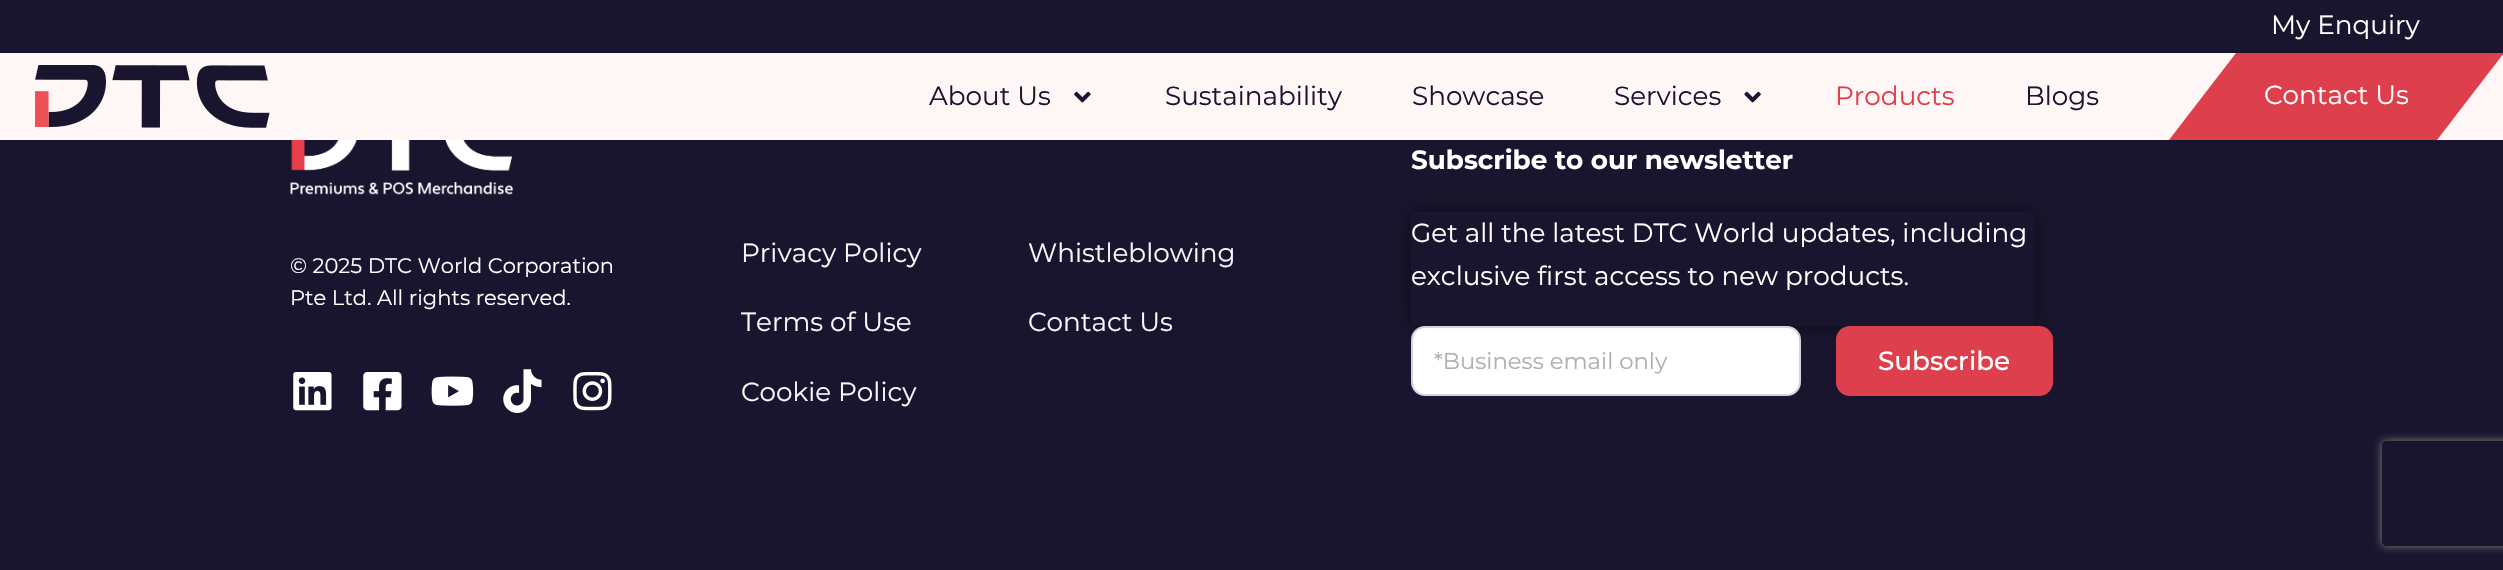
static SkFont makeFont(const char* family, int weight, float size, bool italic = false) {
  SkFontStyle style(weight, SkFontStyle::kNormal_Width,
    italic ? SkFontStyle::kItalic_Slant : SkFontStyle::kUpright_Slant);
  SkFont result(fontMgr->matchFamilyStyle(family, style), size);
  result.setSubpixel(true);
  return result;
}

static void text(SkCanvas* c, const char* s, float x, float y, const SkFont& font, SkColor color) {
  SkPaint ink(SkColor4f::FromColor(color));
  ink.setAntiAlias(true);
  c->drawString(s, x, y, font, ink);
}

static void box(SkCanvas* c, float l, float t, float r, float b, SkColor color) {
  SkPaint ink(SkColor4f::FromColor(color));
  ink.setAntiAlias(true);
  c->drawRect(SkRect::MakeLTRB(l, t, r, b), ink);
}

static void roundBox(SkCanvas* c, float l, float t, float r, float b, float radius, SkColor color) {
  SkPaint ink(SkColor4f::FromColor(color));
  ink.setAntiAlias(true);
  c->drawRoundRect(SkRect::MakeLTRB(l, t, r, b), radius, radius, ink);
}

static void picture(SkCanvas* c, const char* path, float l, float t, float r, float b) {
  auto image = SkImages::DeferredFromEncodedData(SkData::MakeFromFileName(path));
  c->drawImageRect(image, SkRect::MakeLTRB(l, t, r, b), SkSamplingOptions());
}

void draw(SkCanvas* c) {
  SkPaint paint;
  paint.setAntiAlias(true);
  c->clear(0xff19152e);
  SkFont face1 = makeFont("Montserrat", 100, 26.25f);
  text(c, "My Enquiry", 2271, 34, face1, 0xffffffff);
  box(c, 0, 53, 2503, 140, 0xfffff6f6);
  picture(c, "img_01.png", 35, 65, 270, 128);
  text(c, "About Us", 929, 105, face1, 0xff19152e);
  picture(c, "img_02.png", 1074, 91, 1091, 103);
  text(c, "Sustainability", 1165, 105, face1, 0xff19152e);
  text(c, "Showcase", 1412, 105, face1, 0xff19152e);
  text(c, "Services", 1614, 105, face1, 0xff19152e);
  picture(c, "img_03.png", 1744, 91, 1761, 103);
  text(c, "Products", 1835, 105, face1, 0xffde3f4c);
  text(c, "Blogs", 2025, 105, face1, 0xff19152e);
  paint.setColor(0xffde3f4c);
  c->drawPath(SkPathBuilder().moveTo(2169, 140).lineTo(2437, 140).lineTo(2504, 53).lineTo(2236, 53).close().detach(), paint);
  text(c, "Contact Us", 2264, 104, face1, 0xffffffff);
  picture(c, "img_04.png", 290, 140, 513, 195);
  SkFont face2 = makeFont("Montserrat", 100, 21);
  text(c, "© 2025 DTC World Corporation", 290, 273, face2, 0xffffffff);
  text(c, "Pte Ltd. All rights reserved.", 290, 305, face2, 0xffffffff);
  picture(c, "img_05.png", 293, 372, 332, 411);
  picture(c, "img_06.png", 363, 372, 402, 411);
  picture(c, "img_07.png", 431, 376, 474, 406);
  picture(c, "img_08.png", 503, 369, 542, 413);
  picture(c, "img_09.png", 573, 372, 612, 411);
  text(c, "Privacy Policy", 741, 262, face1, 0xfff5f7fa);
  text(c, "Terms of Use", 741, 331, face1, 0xfff5f7fa);
  text(c, "Cookie Policy", 741, 401, face1, 0xfff5f7fa);
  text(c, "Whistleblowing", 1028, 262, face1, 0xfff5f7fa);
  text(c, "Contact Us", 1028, 331, face1, 0xfff5f7fa);
  SkFont face3 = makeFont("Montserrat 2", 100, 26.25f);
  text(c, "Subscribe to our newsletter", 1411, 169, face3, 0xffffffff);
  c->save();
  c->clipPath(SkPathBuilder(SkPathFillType::kEvenOdd).moveTo(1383, 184).lineTo(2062, 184).lineTo(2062, 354).lineTo(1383, 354).close().moveTo(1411, 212).lineTo(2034, 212).lineTo(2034, 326).lineTo(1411, 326).close().detach(), true);
  paint.setColor(0x80000000);
  paint.setMaskFilter(SkMaskFilter::MakeBlur(kNormal_SkBlurStyle, 9));
  c->drawRect(SkRect::MakeLTRB(1411, 212, 2034, 326), paint);
  paint.setMaskFilter(nullptr);
  c->restore();
  text(c, "Get all the latest DTC World updates, including", 1411, 242, face1, 0xffffffff);
  text(c, "exclusive first access to new products.", 1411, 285, face1, 0xffffffff);
  paint.setColor(0xffffffff);
  c->drawRoundRect(SkRect::MakeLTRB(1412, 327, 1800, 395), 13, 13, paint);
  paint.setStyle(SkPaint::kStroke_Style);
  paint.setStrokeWidth(2);
  paint.setColor(0xffd1d5db);
  c->drawRoundRect(SkRect::MakeLTRB(1412, 327, 1800, 395), 13, 13, paint);
  SkFont face4 = makeFont("Montserrat", 100, 22.75f);
  text(c, "*Business email only", 1434, 369, face4, 0xffafafaf);
  roundBox(c, 1836, 326, 2053, 396, 14, 0xffde3f4c);
  SkFont face5 = makeFont("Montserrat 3", 100, 26.25f);
  text(c, "Subscribe", 1878, 370, face5, 0xffffffff);
  c->save();
  c->clipPath(SkPathBuilder(SkPathFillType::kEvenOdd).moveTo(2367, 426).lineTo(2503, 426).lineTo(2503, 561).lineTo(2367, 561).close().moveTo(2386, 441).lineTo(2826, 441).cubicTo(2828, 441, 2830, 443, 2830, 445).lineTo(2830, 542).cubicTo(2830, 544, 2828, 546, 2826, 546).lineTo(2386, 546).cubicTo(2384, 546, 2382, 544, 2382, 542).lineTo(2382, 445).cubicTo(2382, 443, 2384, 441, 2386, 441).close().detach(), true);
  paint.setStyle(SkPaint::kFill_Style);
  paint.setColor(0xff808080);
  paint.setMaskFilter(SkMaskFilter::MakeBlur(kNormal_SkBlurStyle, 4.5f));
  c->drawRoundRect(SkRect::MakeLTRB(2382, 441, 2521, 546), 4, 4, paint);
  paint.setMaskFilter(nullptr);
  c->restore();
}
